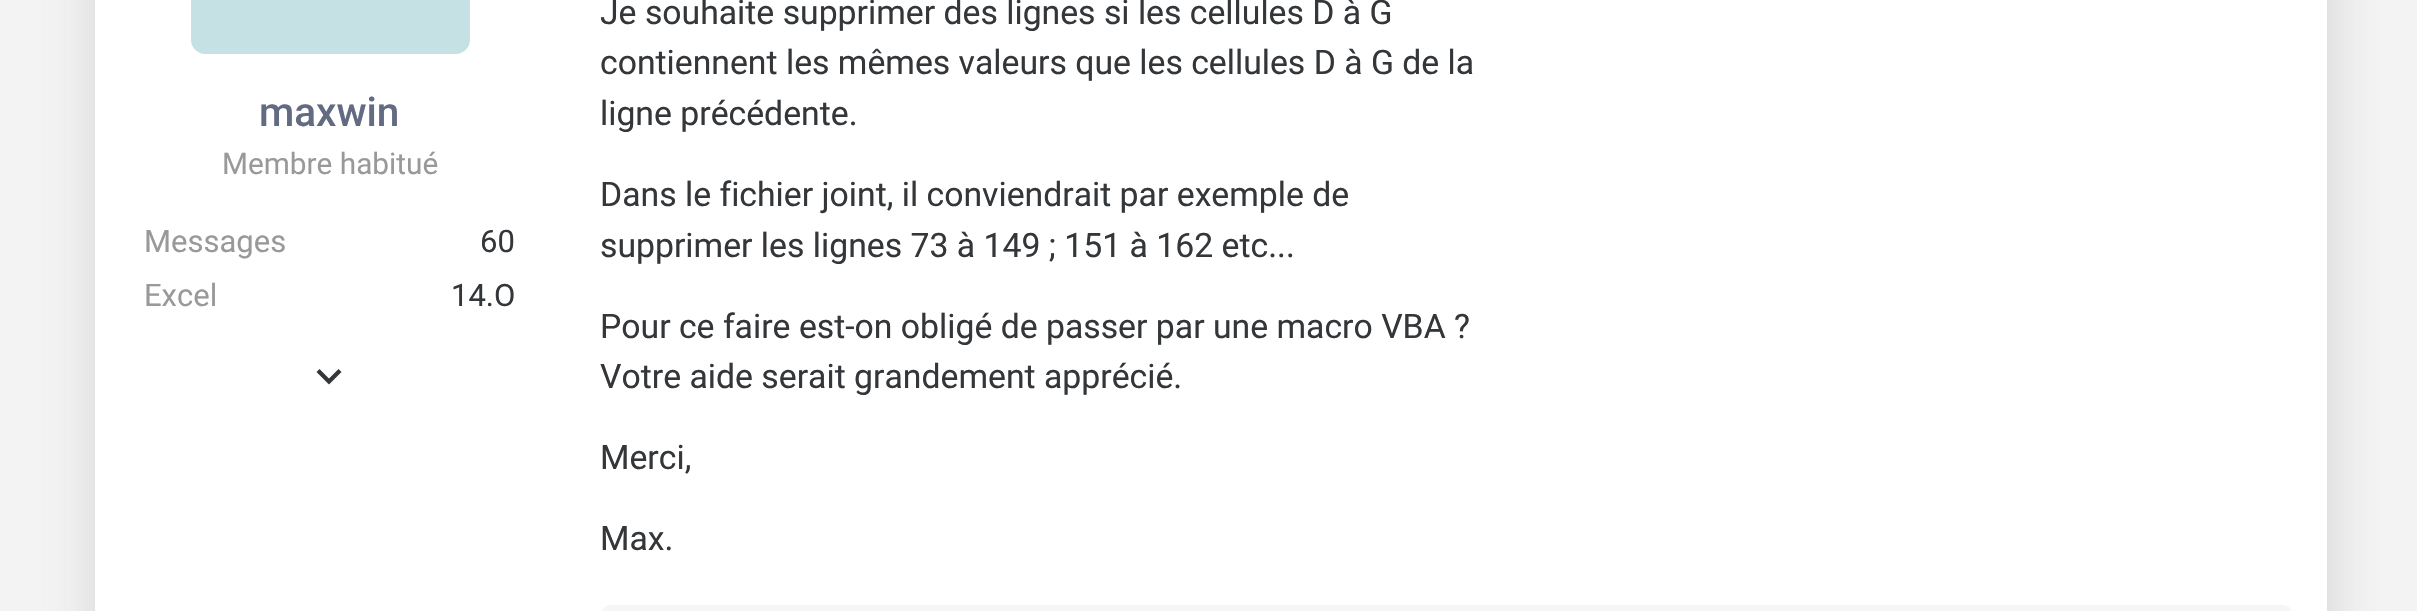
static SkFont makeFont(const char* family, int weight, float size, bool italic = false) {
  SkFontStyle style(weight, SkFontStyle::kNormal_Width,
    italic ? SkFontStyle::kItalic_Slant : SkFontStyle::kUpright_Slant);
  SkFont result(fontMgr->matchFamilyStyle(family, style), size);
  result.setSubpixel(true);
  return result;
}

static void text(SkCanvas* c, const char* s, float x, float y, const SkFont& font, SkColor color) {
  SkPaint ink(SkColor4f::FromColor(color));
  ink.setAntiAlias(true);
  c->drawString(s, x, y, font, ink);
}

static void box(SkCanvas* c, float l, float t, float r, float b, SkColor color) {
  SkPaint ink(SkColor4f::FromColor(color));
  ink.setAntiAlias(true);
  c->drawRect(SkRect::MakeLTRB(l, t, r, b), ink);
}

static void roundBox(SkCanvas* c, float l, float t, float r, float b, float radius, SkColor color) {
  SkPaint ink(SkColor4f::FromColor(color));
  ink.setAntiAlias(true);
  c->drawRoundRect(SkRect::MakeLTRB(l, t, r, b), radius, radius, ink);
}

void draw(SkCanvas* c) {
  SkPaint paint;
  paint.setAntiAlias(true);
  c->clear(0xfff3f3f3);
  paint.setColor(0x59969696);
  paint.setMaskFilter(SkMaskFilter::MakeBlur(kNormal_SkBlurStyle, 25.5f));
  c->drawRoundRect(SkRect::MakeLTRB(97, -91, 2329, 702), 14, 14, paint);
  paint.setMaskFilter(nullptr);
  box(c, 95, 0, 2327, 611, 0xffffffff);
  paint.setColor(0xffc6e1e3);
  c->drawPath(SkPathBuilder().moveTo(191, -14).lineTo(470, -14).lineTo(470, 40).cubicTo(470, 47.5f, 463.5f, 54, 456, 54).lineTo(205, 54).cubicTo(197.5f, 54, 191, 47.5f, 191, 40).close().detach(), paint);
  SkFont face1 = makeFont("Roboto", 500, 40.5f);
  text(c, "maxwin", 259, 126, face1, 0xff626b81);
  SkFont face2 = makeFont("Roboto", 400, 29.75f);
  text(c, "Membre habitué", 222, 174, face2, 0xff999999);
  SkFont face3 = makeFont("Roboto", 400, 31);
  text(c, "Messages", 144, 252, face3, 0xff999999);
  text(c, "60", 480, 252, face3, 0xff34373a);
  text(c, "Excel", 144, 306, face3, 0xff999999);
  text(c, "14.O", 451, 306, face3, 0xff34373a);
  paint.setColor(0xff34373a);
  c->drawPath(SkPathBuilder().moveTo(319.5f, 369).lineTo(329, 378.5f).lineTo(338.5f, 369).lineTo(341.5f, 372).lineTo(329, 384.5f).lineTo(316.5f, 372).close().detach(), paint);
  SkFont face4 = makeFont("Roboto", 400, 33.75f);
  text(c, "Je souhaite supprimer des lignes si les cellules D à G", 600, 24, face4, 0xff34373a);
  text(c, "contiennent les mêmes valeurs que les cellules D à G de la", 600, 74, face4, 0xff34373a);
  text(c, "ligne précédente.", 600, 125, face4, 0xff34373a);
  text(c, "Dans le fichier joint, il conviendrait par exemple de", 600, 206, face4, 0xff34373a);
  text(c, "supprimer les lignes 73 à 149 ; 151 à 162 etc...", 600, 257, face4, 0xff34373a);
  text(c, "Pour ce faire est-on obligé de passer par une macro VBA ?", 600, 338, face4, 0xff34373a);
  text(c, "Votre aide serait grandement apprécié.", 600, 388, face4, 0xff34373a);
  text(c, "Merci,", 600, 469, face4, 0xff34373a);
  text(c, "Max.", 600, 550, face4, 0xff34373a);
  roundBox(c, 601, 605, 2293, 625, 14, 0xfff6f6f6);
}
